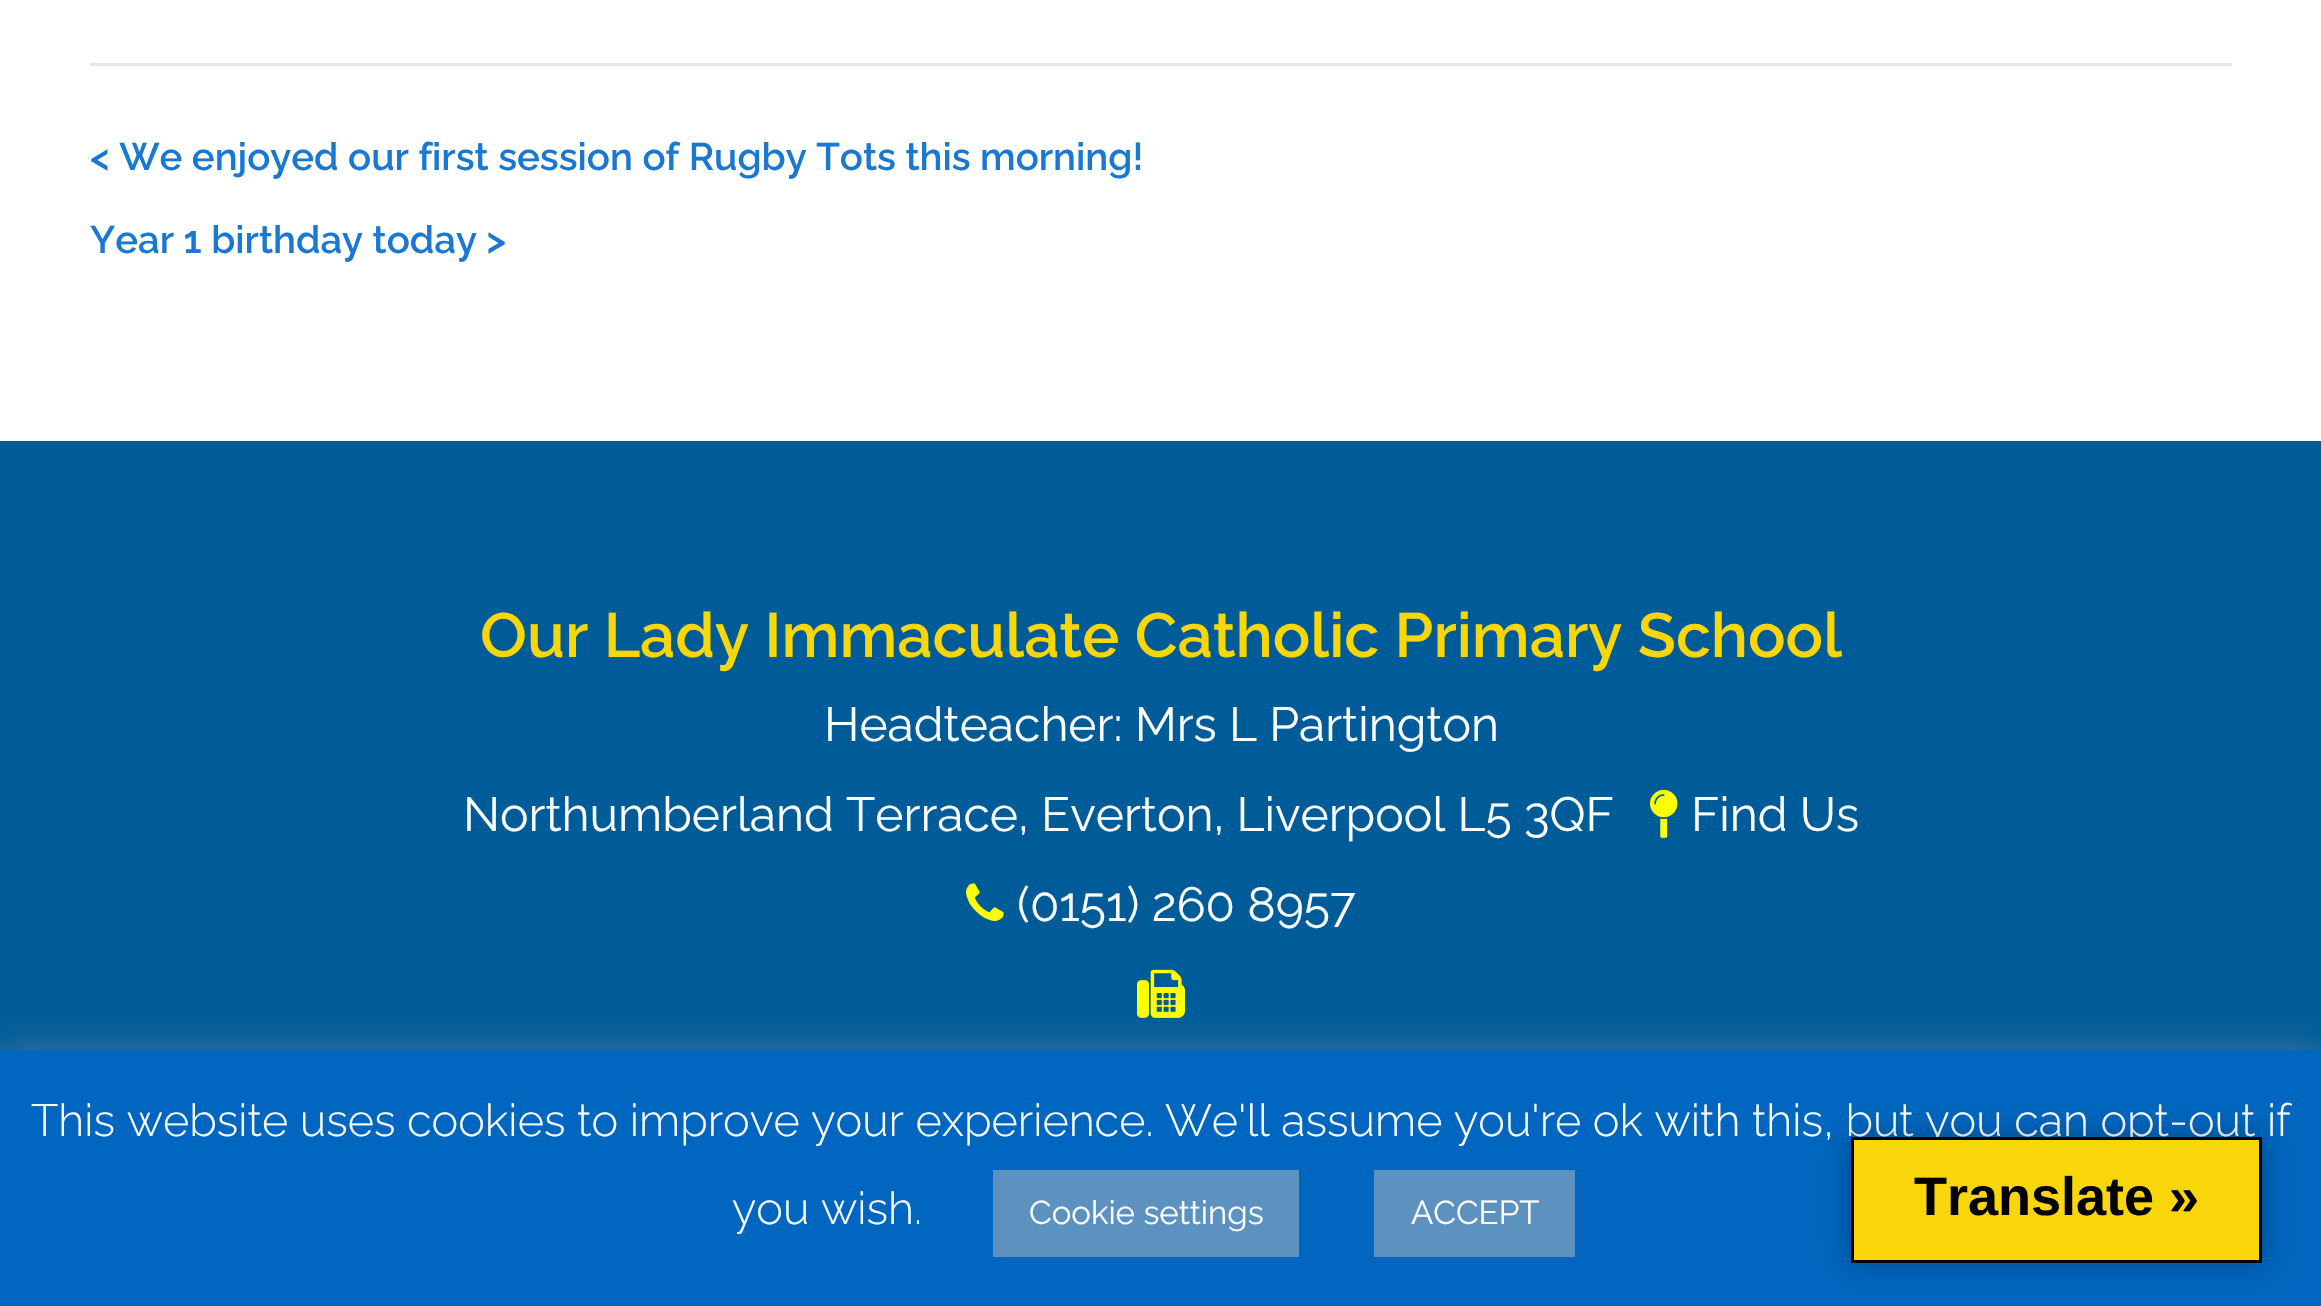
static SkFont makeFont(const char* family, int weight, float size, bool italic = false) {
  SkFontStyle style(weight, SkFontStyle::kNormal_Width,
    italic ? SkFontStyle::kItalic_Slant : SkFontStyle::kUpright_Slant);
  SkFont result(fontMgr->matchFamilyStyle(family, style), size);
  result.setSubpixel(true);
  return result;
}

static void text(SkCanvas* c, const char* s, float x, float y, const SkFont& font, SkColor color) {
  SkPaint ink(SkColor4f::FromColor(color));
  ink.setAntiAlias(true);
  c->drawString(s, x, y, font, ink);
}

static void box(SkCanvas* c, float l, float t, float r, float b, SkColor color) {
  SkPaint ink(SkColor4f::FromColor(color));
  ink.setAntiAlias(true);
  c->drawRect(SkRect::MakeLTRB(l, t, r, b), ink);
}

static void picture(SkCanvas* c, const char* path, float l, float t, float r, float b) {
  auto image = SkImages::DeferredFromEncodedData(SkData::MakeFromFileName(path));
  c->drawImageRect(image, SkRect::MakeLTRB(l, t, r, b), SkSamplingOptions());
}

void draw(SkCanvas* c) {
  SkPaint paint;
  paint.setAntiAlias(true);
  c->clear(0xffffffff);
  box(c, 90, 63, 2232, 66, 0xffe6e6e6);
  SkFont face1 = makeFont("Raleway", 600, 38.4f);
  text(c, "< We enjoyed our first session of Rugby Tots this morning!", 90, 170, face1, 0xff1978d4);
  text(c, "Year 1 birthday today >", 90, 253, face1, 0xff1978d4);
  box(c, 0, 441, 2321, 1050, 0xff005c98);
  SkFont face2 = makeFont("Raleway", 600, 62.4f);
  text(c, "Our Lady Immaculate Catholic Primary School", 480, 657, face2, 0xfff8d609);
  SkFont face3 = makeFont("Raleway", 400, 48);
  text(c, "Headteacher: Mrs L Partington", 824, 741, face3, 0xffffffff);
  text(c, "Northumberland Terrace, Everton, Liverpool L5 3QF", 463, 831, face3, 0xffffffff);
  picture(c, "img_01.png", 1650, 789, 1678, 838);
  text(c, "Find Us", 1691, 831, face3, 0xffffffff);
  picture(c, "img_02.png", 966, 883, 1004, 921);
  text(c, "(0151) 260 8957", 1017, 921, face3, 0xffffffff);
  picture(c, "img_03.png", 1137, 969, 1185, 1018);
  paint.setColor(0x4dacabab);
  paint.setMaskFilter(SkMaskFilter::MakeBlur(kNormal_SkBlurStyle, 15));
  c->drawRect(SkRect::MakeLTRB(0, 1047, 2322, 1305), paint);
  paint.setMaskFilter(nullptr);
  box(c, 0, 1050, 2321, 1306, 0xff0066bf);
  SkFont face4 = makeFont("Raleway", 300, 45);
  text(c, "This website uses cookies to improve your experience. We'll assume you're ok with this, but you can opt-out if", 31, 1136, face4, 0xffffffff);
  text(c, "you wish.", 732, 1224, face4, 0xffffffff);
  box(c, 993, 1170, 1299, 1257, 0xff5d91bf);
  SkFont face5 = makeFont("Raleway", 400, 33);
  text(c, "Cookie settings", 1029, 1224, face5, 0xffffffff);
  box(c, 1374, 1170, 1575, 1257, 0xff5d91bf);
  text(c, "ACCEPT", 1411, 1224, face5, 0xffffffff);
  paint.setColor(0x4d000000);
  paint.setMaskFilter(SkMaskFilter::MakeBlur(kNormal_SkBlurStyle, 13.5f));
  c->drawRect(SkRect::MakeLTRB(1851, 1137, 2262, 1263), paint);
  paint.setMaskFilter(nullptr);
  paint.setColor(0xfff8d609);
  c->drawRect(SkRect::MakeLTRB(1852.5f, 1138.5f, 2260.5f, 1261.5f), paint);
  paint.setStyle(SkPaint::kStroke_Style);
  paint.setStrokeWidth(3);
  paint.setColor(0xff000000);
  c->drawRect(SkRect::MakeLTRB(1852.5f, 1138.5f, 2260.5f, 1261.5f), paint);
  SkFont face6 = makeFont("Liberation Sans", 700, 54);
  text(c, "Translate »", 1914, 1215, face6, 0xff000000);
}
